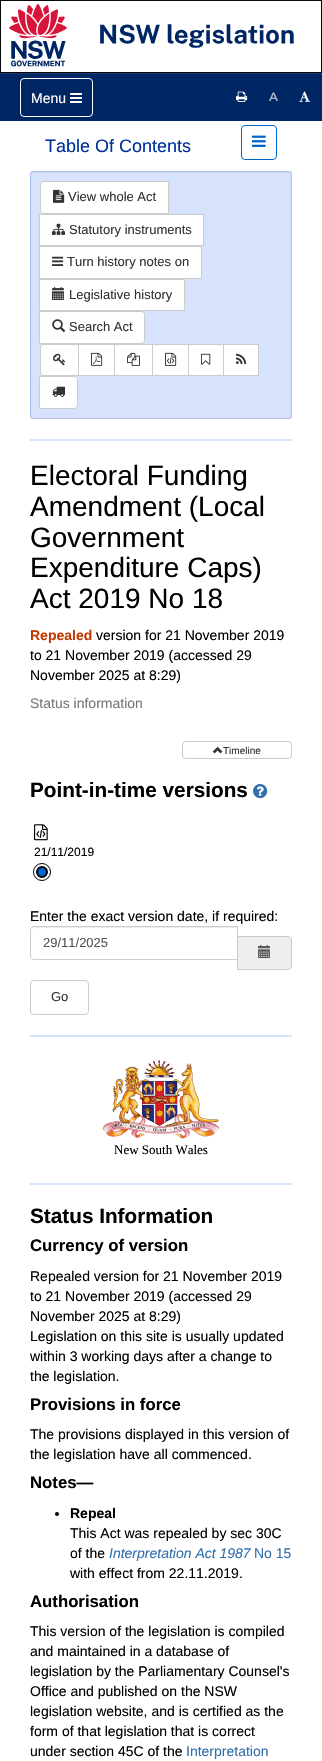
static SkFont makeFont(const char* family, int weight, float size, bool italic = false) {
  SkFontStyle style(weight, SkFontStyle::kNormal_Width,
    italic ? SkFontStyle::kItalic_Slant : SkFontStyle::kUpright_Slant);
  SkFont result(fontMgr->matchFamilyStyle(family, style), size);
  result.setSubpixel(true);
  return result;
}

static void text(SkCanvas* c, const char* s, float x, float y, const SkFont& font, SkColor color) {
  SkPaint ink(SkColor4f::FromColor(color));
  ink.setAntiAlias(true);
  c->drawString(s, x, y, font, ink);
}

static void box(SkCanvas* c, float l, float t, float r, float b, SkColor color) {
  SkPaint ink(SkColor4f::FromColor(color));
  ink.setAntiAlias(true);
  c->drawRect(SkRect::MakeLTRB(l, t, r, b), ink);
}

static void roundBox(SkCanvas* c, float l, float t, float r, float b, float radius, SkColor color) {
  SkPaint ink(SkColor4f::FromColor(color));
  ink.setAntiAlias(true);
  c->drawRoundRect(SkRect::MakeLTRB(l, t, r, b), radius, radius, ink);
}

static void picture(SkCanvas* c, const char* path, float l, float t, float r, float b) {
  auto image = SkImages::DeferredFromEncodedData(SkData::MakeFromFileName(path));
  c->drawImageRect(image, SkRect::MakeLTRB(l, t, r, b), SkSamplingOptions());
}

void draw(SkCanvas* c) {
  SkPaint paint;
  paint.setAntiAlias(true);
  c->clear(0xffffffff);
  paint.setStyle(SkPaint::kStroke_Style);
  paint.setStrokeWidth(1);
  paint.setColor(0xff080808);
  c->drawRect(SkRect::MakeLTRB(0.5f, 0.5f, 321.5f, 72.5f), paint);
  picture(c, "img_01.png", 9, 4, 294, 67);
  box(c, 0, 74, 322, 121, 0xff002664);
  box(c, 0, 73, 322, 74, 0xff1a3c74);
  paint.setColor(0xffffffff);
  c->drawRoundRect(SkRect::MakeLTRB(20.5f, 78.5f, 92.5f, 116.5f), 3.5f, 3.5f, paint);
  SkFont face1 = makeFont("Liberation Sans", 400, 14);
  text(c, "Menu", 31, 103, face1, 0xffffffff);
  picture(c, "img_02.png", 70, 93, 82, 103);
  picture(c, "img_03.png", 236, 91, 248, 102);
  SkFont face2 = makeFont("Montserrat", 600, 12);
  text(c, "A", 269, 101, face2, 0xffa6b3c9);
  picture(c, "img_04.png", 299, 91, 311, 102);
  SkFont face3 = makeFont("Liberation Sans", 400, 18);
  text(c, "Table Of Contents", 45, 152, face3, 0xff003399);
  paint.setColor(0xff0066cc);
  c->drawRoundRect(SkRect::MakeLTRB(241.5f, 125.5f, 276.5f, 159.5f), 3.5f, 3.5f, paint);
  picture(c, "img_05.png", 252, 135, 266, 147);
  roundBox(c, 30, 171, 292, 419, 3, 0xffd7e2fc);
  paint.setStyle(SkPaint::kFill_Style);
  paint.setColor(0xffccd7ef);
  c->drawPath(SkPathBuilder().moveTo(33, 173).lineTo(289, 173).cubicTo(290, 173, 291, 174, 291, 175).lineTo(291, 174).cubicTo(291, 173, 290, 172, 289, 172).lineTo(33, 172).cubicTo(32, 172, 31, 173, 31, 174).lineTo(31, 175).cubicTo(31, 174, 32, 173, 33, 173).close().detach(), paint);
  paint.setStyle(SkPaint::kStroke_Style);
  paint.setColor(0xffaebfe9);
  c->drawRoundRect(SkRect::MakeLTRB(30.5f, 171.5f, 291.5f, 418.5f), 2.5f, 2.5f, paint);
  paint.setStyle(SkPaint::kFill_Style);
  paint.setColor(0xffffffff);
  c->drawPath(SkPathBuilder().moveTo(44, 181.5f).lineTo(168.5f, 181.5f).lineTo(168.5f, 213.5f).lineTo(44, 213.5f).cubicTo(42, 213.5f, 40.5f, 212, 40.5f, 210).lineTo(40.5f, 185).cubicTo(40.5f, 183, 42, 181.5f, 44, 181.5f).close().detach(), paint);
  paint.setStyle(SkPaint::kStroke_Style);
  paint.setColor(0xffcccccc);
  c->drawPath(SkPathBuilder().moveTo(44, 181.5f).lineTo(168.5f, 181.5f).lineTo(168.5f, 213.5f).lineTo(44, 213.5f).cubicTo(42, 213.5f, 40.5f, 212, 40.5f, 210).lineTo(40.5f, 185).cubicTo(40.5f, 183, 42, 181.5f, 44, 181.5f).close().detach(), paint);
  picture(c, "img_06.png", 53, 189, 65, 203);
  SkFont face4 = makeFont("Liberation Sans", 400, 13);
  text(c, "View whole Act", 68, 201, face4, 0xff333333);
  paint.setStyle(SkPaint::kFill_Style);
  paint.setColor(0xffffffff);
  c->drawRect(SkRect::MakeLTRB(39.5f, 214.5f, 203.5f, 245.5f), paint);
  paint.setStyle(SkPaint::kStroke_Style);
  paint.setColor(0xffcccccc);
  c->drawRect(SkRect::MakeLTRB(39.5f, 214.5f, 203.5f, 245.5f), paint);
  picture(c, "img_07.png", 52, 223, 65, 235);
  text(c, "Statutory instruments", 69, 234, face4, 0xff333333);
  paint.setStyle(SkPaint::kFill_Style);
  paint.setColor(0xffffffff);
  c->drawRect(SkRect::MakeLTRB(39.5f, 246.5f, 201.5f, 278.5f), paint);
  paint.setStyle(SkPaint::kStroke_Style);
  paint.setColor(0xffcccccc);
  c->drawRect(SkRect::MakeLTRB(39.5f, 246.5f, 201.5f, 278.5f), paint);
  picture(c, "img_08.png", 52, 256, 64, 266);
  text(c, "Turn history notes on", 67, 266, face4, 0xff333333);
  paint.setStyle(SkPaint::kFill_Style);
  paint.setColor(0xffffffff);
  c->drawRect(SkRect::MakeLTRB(39.5f, 279.5f, 184.5f, 310.5f), paint);
  paint.setStyle(SkPaint::kStroke_Style);
  paint.setColor(0xffcccccc);
  c->drawRect(SkRect::MakeLTRB(39.5f, 279.5f, 184.5f, 310.5f), paint);
  picture(c, "img_09.png", 52, 287, 64, 300);
  text(c, "Legislative history", 69, 299, face4, 0xff333333);
  paint.setStyle(SkPaint::kFill_Style);
  paint.setColor(0xffffffff);
  c->drawPath(SkPathBuilder().moveTo(39.5f, 311.5f).lineTo(141, 311.5f).cubicTo(143, 311.5f, 144.5f, 313, 144.5f, 315).lineTo(144.5f, 340).cubicTo(144.5f, 342, 143, 343.5f, 141, 343.5f).lineTo(39.5f, 343.5f).close().detach(), paint);
  paint.setStyle(SkPaint::kStroke_Style);
  paint.setColor(0xffcccccc);
  c->drawPath(SkPathBuilder().moveTo(39.5f, 311.5f).lineTo(141, 311.5f).cubicTo(143, 311.5f, 144.5f, 313, 144.5f, 315).lineTo(144.5f, 340).cubicTo(144.5f, 342, 143, 343.5f, 141, 343.5f).lineTo(39.5f, 343.5f).close().detach(), paint);
  picture(c, "img_10.png", 52, 319, 66, 333);
  text(c, "Search Act", 69, 331, face4, 0xff333333);
  paint.setStyle(SkPaint::kFill_Style);
  paint.setColor(0xffffffff);
  c->drawPath(SkPathBuilder().moveTo(44, 344.5f).lineTo(78.5f, 344.5f).lineTo(78.5f, 375.5f).lineTo(44, 375.5f).cubicTo(42, 375.5f, 40.5f, 374, 40.5f, 372).lineTo(40.5f, 348).cubicTo(40.5f, 346, 42, 344.5f, 44, 344.5f).close().detach(), paint);
  paint.setStyle(SkPaint::kStroke_Style);
  paint.setColor(0xffcccccc);
  c->drawPath(SkPathBuilder().moveTo(44, 344.5f).lineTo(78.5f, 344.5f).lineTo(78.5f, 375.5f).lineTo(44, 375.5f).cubicTo(42, 375.5f, 40.5f, 374, 40.5f, 372).lineTo(40.5f, 348).cubicTo(40.5f, 346, 42, 344.5f, 44, 344.5f).close().detach(), paint);
  picture(c, "img_11.png", 53, 353, 66, 366);
  paint.setStyle(SkPaint::kFill_Style);
  paint.setColor(0xffffffff);
  c->drawRect(SkRect::MakeLTRB(78.5f, 344.5f, 114.5f, 375.5f), paint);
  paint.setStyle(SkPaint::kStroke_Style);
  paint.setColor(0xffcccccc);
  c->drawRect(SkRect::MakeLTRB(78.5f, 344.5f, 114.5f, 375.5f), paint);
  picture(c, "img_12.png", 91, 352, 103, 366);
  paint.setStyle(SkPaint::kFill_Style);
  paint.setColor(0xffffffff);
  c->drawRect(SkRect::MakeLTRB(114.5f, 344.5f, 152.5f, 375.5f), paint);
  paint.setStyle(SkPaint::kStroke_Style);
  paint.setColor(0xffcccccc);
  c->drawRect(SkRect::MakeLTRB(114.5f, 344.5f, 152.5f, 375.5f), paint);
  picture(c, "img_13.png", 127, 352, 140, 366);
  paint.setStyle(SkPaint::kFill_Style);
  paint.setColor(0xffffffff);
  c->drawRect(SkRect::MakeLTRB(152.5f, 344.5f, 188.5f, 375.5f), paint);
  paint.setStyle(SkPaint::kStroke_Style);
  paint.setColor(0xffcccccc);
  c->drawRect(SkRect::MakeLTRB(152.5f, 344.5f, 188.5f, 375.5f), paint);
  picture(c, "img_14.png", 165, 352, 177, 366);
  paint.setStyle(SkPaint::kFill_Style);
  paint.setColor(0xffffffff);
  c->drawRect(SkRect::MakeLTRB(188.5f, 344.5f, 223.5f, 375.5f), paint);
  paint.setStyle(SkPaint::kStroke_Style);
  paint.setColor(0xffcccccc);
  c->drawRect(SkRect::MakeLTRB(188.5f, 344.5f, 223.5f, 375.5f), paint);
  picture(c, "img_15.png", 201, 353, 211, 365);
  paint.setStyle(SkPaint::kFill_Style);
  paint.setColor(0xffffffff);
  c->drawRect(SkRect::MakeLTRB(223.5f, 344.5f, 258.5f, 375.5f), paint);
  paint.setStyle(SkPaint::kStroke_Style);
  paint.setColor(0xffcccccc);
  c->drawRect(SkRect::MakeLTRB(223.5f, 344.5f, 258.5f, 375.5f), paint);
  picture(c, "img_16.png", 236, 353, 247, 364);
  paint.setStyle(SkPaint::kFill_Style);
  paint.setColor(0xffffffff);
  c->drawPath(SkPathBuilder().moveTo(39.5f, 376.5f).lineTo(74, 376.5f).cubicTo(76, 376.5f, 77.5f, 378, 77.5f, 380).lineTo(77.5f, 405).cubicTo(77.5f, 407, 76, 408.5f, 74, 408.5f).lineTo(39.5f, 408.5f).close().detach(), paint);
  paint.setStyle(SkPaint::kStroke_Style);
  paint.setColor(0xffcccccc);
  c->drawPath(SkPathBuilder().moveTo(39.5f, 376.5f).lineTo(74, 376.5f).cubicTo(76, 376.5f, 77.5f, 378, 77.5f, 380).lineTo(77.5f, 405).cubicTo(77.5f, 407, 76, 408.5f, 74, 408.5f).lineTo(39.5f, 408.5f).close().detach(), paint);
  picture(c, "img_17.png", 52, 386, 65, 397);
  box(c, 30, 439, 292, 441, 0xffd7e2fc);
  SkFont face5 = makeFont("Liberation Sans", 400, 28);
  text(c, "Electoral Funding", 30, 485, face5, 0xff000000);
  text(c, "Amendment (Local", 30, 516, face5, 0xff000000);
  text(c, "Government", 30, 547, face5, 0xff000000);
  text(c, "Expenditure Caps)", 30, 577, face5, 0xff000000);
  text(c, "Act 2019 No 18", 30, 608, face5, 0xff000000);
  SkFont face6 = makeFont("Liberation Sans", 700, 14);
  text(c, "Repealed", 30, 640, face6, 0xffc03a00);
  text(c, "version for 21 November 2019", 96, 640, face1, 0xff000000);
  text(c, "to 21 November 2019 (accessed 29", 30, 660, face1, 0xff000000);
  text(c, "November 2025 at 8:29)", 30, 680, face1, 0xff000000);
  text(c, "Status information", 30, 708, face1, 0xff777777);
  c->drawRoundRect(SkRect::MakeLTRB(182.5f, 741.5f, 291.5f, 758.5f), 3.5f, 3.5f, paint);
  picture(c, "img_18.png", 212, 746, 223, 754);
  SkFont face7 = makeFont("Liberation Sans", 400, 10);
  text(c, "Timeline", 223, 754, face7, 0xff333333);
  SkFont face8 = makeFont("Liberation Sans", 700, 20.75f);
  text(c, "Point-in-time versions", 30, 797, face8, 0xff000000);
  picture(c, "img_19.png", 253, 784, 268, 799);
  picture(c, "img_20.png", 34, 824, 48, 841);
  SkFont face9 = makeFont("Liberation Sans", 400, 12);
  text(c, "21/11/2019", 34, 856, face9, 0xff000000);
  paint.setColor(0xff000000);
  c->drawCircle(42, 872, 8.5f, paint);
  paint.setStyle(SkPaint::kFill_Style);
  paint.setColor(0xff0066cc);
  c->drawCircle(42, 872, 5, paint);
  paint.setStyle(SkPaint::kStroke_Style);
  paint.setStrokeWidth(2);
  paint.setColor(0xff000000);
  c->drawCircle(42, 872, 5, paint);
  text(c, "Enter the exact version date, if required:", 30, 921, face1, 0xff000000);
  paint.setStyle(SkPaint::kFill_Style);
  paint.setColor(0xffeeeeee);
  c->drawPath(SkPathBuilder().moveTo(237.5f, 936.5f).lineTo(288, 936.5f).cubicTo(290, 936.5f, 291.5f, 938, 291.5f, 940).lineTo(291.5f, 966).cubicTo(291.5f, 968, 290, 969.5f, 288, 969.5f).lineTo(237.5f, 969.5f).close().detach(), paint);
  paint.setStyle(SkPaint::kStroke_Style);
  paint.setStrokeWidth(1);
  paint.setColor(0xffcccccc);
  c->drawPath(SkPathBuilder().moveTo(237.5f, 936.5f).lineTo(288, 936.5f).cubicTo(290, 936.5f, 291.5f, 938, 291.5f, 940).lineTo(291.5f, 966).cubicTo(291.5f, 968, 290, 969.5f, 288, 969.5f).lineTo(237.5f, 969.5f).close().detach(), paint);
  paint.setStyle(SkPaint::kFill_Style);
  paint.setColor(0xffffffff);
  c->drawPath(SkPathBuilder().moveTo(34, 926).lineTo(238, 926).lineTo(238, 960).lineTo(34, 960).cubicTo(32, 960, 30, 958, 30, 956).lineTo(30, 930).cubicTo(30, 928, 32, 926, 34, 926).close().detach(), paint);
  paint.setColor(0xffececec);
  c->drawPath(SkPathBuilder().moveTo(34, 928).lineTo(237, 928).lineTo(237, 927).lineTo(33, 927).cubicTo(31, 928, 31, 929, 31, 931).cubicTo(31, 929, 32, 928, 34, 928).close().detach(), paint);
  paint.setStyle(SkPaint::kStroke_Style);
  paint.setColor(0xffcccccc);
  c->drawPath(SkPathBuilder().moveTo(34, 926.5f).lineTo(237.5f, 926.5f).lineTo(237.5f, 959.5f).lineTo(34, 959.5f).cubicTo(32, 959.5f, 30.5f, 958, 30.5f, 956).lineTo(30.5f, 930).cubicTo(30.5f, 928, 32, 926.5f, 34, 926.5f).close().detach(), paint);
  text(c, "29/11/2025", 43, 947, face4, 0xff555555);
  picture(c, "img_21.png", 258, 945, 270, 958);
  c->drawRoundRect(SkRect::MakeLTRB(30.5f, 980.5f, 88.5f, 1014.5f), 3.5f, 3.5f, paint);
  text(c, "Go", 51, 1001, face4, 0xff333333);
  box(c, 30, 1035, 292, 1037, 0xffd7e2fc);
  picture(c, "img_22.png", 102, 1059, 220, 1139);
  SkFont face10 = makeFont("Liberation Serif", 400, 13);
  text(c, "New South Wales", 114, 1154, face10, 0xff000000);
  box(c, 30, 1183, 292, 1185, 0xffd7e2fc);
  text(c, "Status Information", 30, 1223, face8, 0xff000000);
  SkFont face11 = makeFont("Liberation Sans", 700, 16.75f);
  text(c, "Currency of version", 30, 1251, face11, 0xff000000);
  text(c, "Repealed version for 21 November 2019", 30, 1281, face1, 0xff000000);
  text(c, "to 21 November 2019 (accessed 29", 30, 1301, face1, 0xff000000);
  text(c, "November 2025 at 8:29)", 30, 1321, face1, 0xff000000);
  text(c, "Legislation on this site is usually updated", 30, 1341, face1, 0xff000000);
  text(c, "within 3 working days after a change to", 30, 1361, face1, 0xff000000);
  text(c, "the legislation.", 30, 1381, face1, 0xff000000);
  text(c, "Provisions in force", 30, 1410, face11, 0xff000000);
  text(c, "The provisions displayed in this version of", 30, 1439, face1, 0xff000000);
  text(c, "the legislation have all commenced.", 30, 1459, face1, 0xff000000);
  text(c, "Notes—", 30, 1488, face11, 0xff000000);
  paint.setStyle(SkPaint::kFill_Style);
  paint.setColor(0xff000000);
  c->drawCircle(57, 1514, 2, paint);
  text(c, "Repeal", 70, 1518, face6, 0xff000000);
  text(c, "This Act was repealed by sec 30C", 70, 1538, face1, 0xff000000);
  text(c, "of the", 70, 1558, face1, 0xff000000);
  SkFont face12 = makeFont("Liberation Sans", 400, 14, true);
  text(c, "Interpretation Act 1987", 109, 1558, face12, 0xff3170ab);
  text(c, "No 15", 254, 1558, face1, 0xff3170ab);
  text(c, "with effect from 22.11.2019.", 70, 1578, face1, 0xff000000);
  text(c, "Authorisation", 30, 1607, face11, 0xff000000);
  text(c, "This version of the legislation is compiled", 30, 1636, face1, 0xff000000);
  text(c, "and maintained in a database of", 30, 1656, face1, 0xff000000);
  text(c, "legislation by the Parliamentary Counsel's", 30, 1676, face1, 0xff000000);
  text(c, "Office and published on the NSW", 30, 1696, face1, 0xff000000);
  text(c, "legislation website, and is certified as the", 30, 1716, face1, 0xff000000);
  text(c, "form of that legislation that is correct", 30, 1736, face1, 0xff000000);
  text(c, "under section 45C of the", 30, 1756, face1, 0xff000000);
  text(c, "Interpretation", 186, 1756, face1, 0xff3170ab);
}
